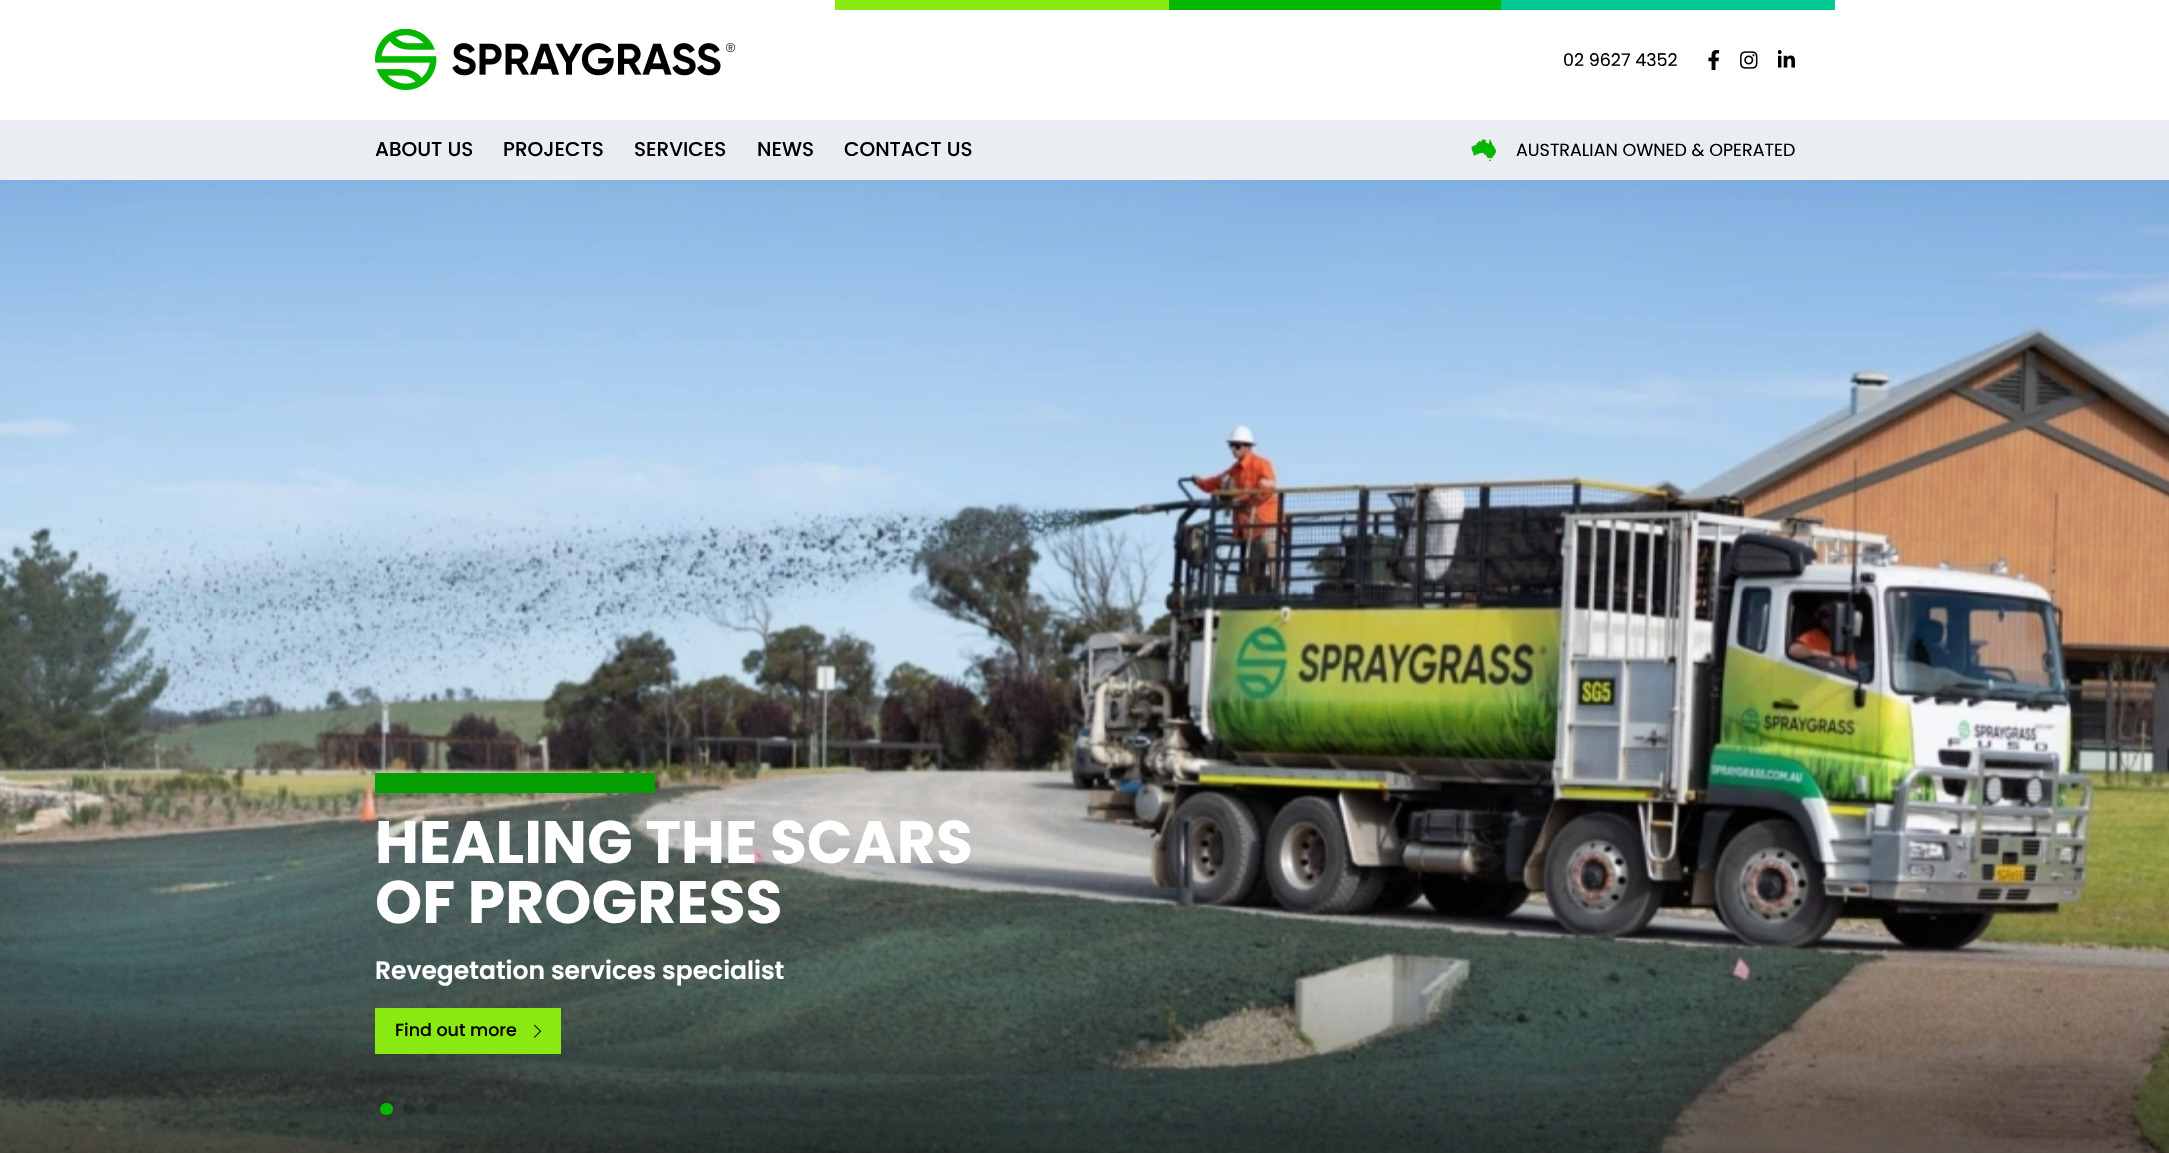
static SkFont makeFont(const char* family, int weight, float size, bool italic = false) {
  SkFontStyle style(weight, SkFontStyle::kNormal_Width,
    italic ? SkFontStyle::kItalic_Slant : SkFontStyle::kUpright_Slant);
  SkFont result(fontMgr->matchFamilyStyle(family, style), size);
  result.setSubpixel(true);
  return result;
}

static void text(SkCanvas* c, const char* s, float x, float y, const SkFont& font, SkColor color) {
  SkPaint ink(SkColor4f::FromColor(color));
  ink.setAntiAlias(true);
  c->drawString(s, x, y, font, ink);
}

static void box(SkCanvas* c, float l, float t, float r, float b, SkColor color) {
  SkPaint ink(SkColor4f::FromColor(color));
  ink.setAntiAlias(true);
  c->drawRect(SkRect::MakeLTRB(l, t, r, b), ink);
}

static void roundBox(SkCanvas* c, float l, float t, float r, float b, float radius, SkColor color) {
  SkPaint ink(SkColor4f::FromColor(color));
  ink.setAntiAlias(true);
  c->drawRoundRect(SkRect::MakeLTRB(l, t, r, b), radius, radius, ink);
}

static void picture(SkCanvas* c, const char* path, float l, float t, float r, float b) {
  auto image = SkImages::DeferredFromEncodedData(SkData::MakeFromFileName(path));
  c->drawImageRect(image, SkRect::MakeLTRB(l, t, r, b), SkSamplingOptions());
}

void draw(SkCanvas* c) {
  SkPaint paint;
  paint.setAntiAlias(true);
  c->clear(0xffffffff);
  box(c, 835, 0, 1169, 10, 0xff8ae911);
  box(c, 1169, 0, 1501, 10, 0xff05b700);
  box(c, 1501, 0, 1835, 10, 0xff01c992);
  picture(c, "img_01.png", 375, 29, 735, 91);
  SkFont face1 = makeFont("Poppins", 400, 17.5f);
  text(c, "02 9627 4352", 1563, 66, face1, 0xff000000);
  picture(c, "img_02.png", 1708, 50, 1720, 70);
  picture(c, "img_03.png", 1740, 51, 1758, 69);
  picture(c, "img_04.png", 1778, 50, 1795, 68);
  box(c, 0, 120, 2169, 180, 0xffeaeef2);
  SkFont face2 = makeFont("Poppins", 500, 20);
  text(c, "ABOUT US", 375, 156, face2, 0xff000000);
  text(c, "PROJECTS", 503, 156, face2, 0xff000000);
  text(c, "SERVICES", 634, 156, face2, 0xff000000);
  text(c, "NEWS", 757, 156, face2, 0xff000000);
  text(c, "CONTACT US", 844, 156, face2, 0xff000000);
  picture(c, "img_05.png", 1471, 139, 1496, 161);
  text(c, "AUSTRALIAN OWNED & OPERATED", 1516, 156, face1, 0xff000000);
  picture(c, "img_06.png", 0, 180, 2169, 1153);
  box(c, 375, 773, 655, 793, 0xff049d02);
  SkFont face3 = makeFont("Poppins", 700, 60);
  text(c, "HEALING THE SCARS", 375, 863, face3, 0xffffffff);
  text(c, "OF PROGRESS", 375, 923, face3, 0xffffffff);
  SkFont face4 = makeFont("Poppins", 600, 25);
  text(c, "Revegetation services specialist", 375, 979, face4, 0xffffffff);
  box(c, 375, 1008, 561, 1054, 0xff8ae911);
  picture(c, "img_07.png", 534, 1024, 541, 1038);
  SkFont face5 = makeFont("Poppins", 500, 17.5f);
  text(c, "Find out more", 395, 1036, face5, 0xff000000);
  roundBox(c, 380, 1103, 393, 1115, 6, 0xff05b700);
  paint.setColor(0x33000000);
  c->drawCircle(409, 1109, 6, paint);
  roundBox(c, 425, 1103, 438, 1115, 6, 0x33000000);
}
